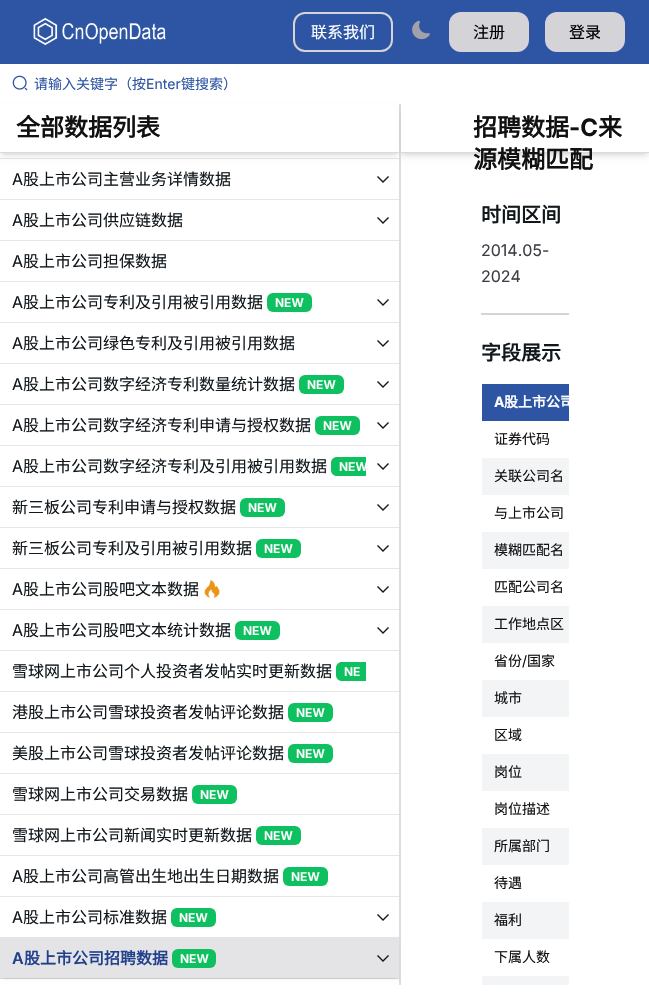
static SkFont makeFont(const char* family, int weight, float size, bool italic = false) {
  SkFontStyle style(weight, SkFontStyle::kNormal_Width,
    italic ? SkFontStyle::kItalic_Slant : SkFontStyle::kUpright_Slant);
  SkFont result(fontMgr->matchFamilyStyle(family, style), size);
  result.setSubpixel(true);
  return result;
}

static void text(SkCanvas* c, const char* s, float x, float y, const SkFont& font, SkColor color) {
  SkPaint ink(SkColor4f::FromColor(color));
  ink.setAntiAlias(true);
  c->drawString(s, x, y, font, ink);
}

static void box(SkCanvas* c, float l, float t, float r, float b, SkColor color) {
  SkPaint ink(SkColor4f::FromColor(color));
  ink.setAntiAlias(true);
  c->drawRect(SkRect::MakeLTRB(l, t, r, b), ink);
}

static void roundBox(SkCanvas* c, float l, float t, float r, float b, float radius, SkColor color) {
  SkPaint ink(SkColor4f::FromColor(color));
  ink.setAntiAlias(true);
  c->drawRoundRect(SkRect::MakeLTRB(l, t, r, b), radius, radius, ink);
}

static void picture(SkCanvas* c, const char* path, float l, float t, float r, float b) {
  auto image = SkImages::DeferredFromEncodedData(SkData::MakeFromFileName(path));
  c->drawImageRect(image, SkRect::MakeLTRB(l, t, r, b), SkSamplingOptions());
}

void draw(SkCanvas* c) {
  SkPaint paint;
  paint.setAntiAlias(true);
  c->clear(0xffffffff);
  box(c, 0, 0, 649, 64, 0xff2e55a4);
  picture(c, "img_01.png", 33, 17, 166, 46);
  paint.setStyle(SkPaint::kStroke_Style);
  paint.setStrokeWidth(2);
  paint.setColor(0xffd4d4d8);
  c->drawRoundRect(SkRect::MakeLTRB(294, 13, 392, 51), 11, 11, paint);
  SkFont face1 = makeFont("Noto Sans CJK SC", 400, 16);
  text(c, "联系我们", 311, 38, face1, 0xffffffff);
  picture(c, "img_02.png", 412, 20, 430, 40);
  roundBox(c, 449, 12, 529, 52, 12, 0xffd4d4d8);
  text(c, "注册", 473, 38, face1, 0xff000000);
  roundBox(c, 545, 12, 625, 52, 12, 0xffd4d4d8);
  text(c, "登录", 569, 38, face1, 0xff000000);
  picture(c, "img_03.png", 12, 75, 28, 91);
  SkFont face2 = makeFont("Noto Sans CJK SC", 400, 14);
  text(c, "请输入关键字（按", 34, 89, face2, 0xff2e55a4);
  SkFont face3 = makeFont("Inter", 400, 14);
  text(c, "Enter", 146, 89, face3, 0xff2e55a4);
  text(c, "键搜索）", 181, 89, face2, 0xff2e55a4);
  box(c, 399, 104, 401, 985, 0xffdddddd);
  box(c, 0, 158, 399, 159, 0xffe5e7eb);
  c->save();
  c->clipRect(SkRect::MakeLTRB(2, 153, 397, 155));
  paint.setStyle(SkPaint::kFill_Style);
  paint.setColor(0x1a000000);
  paint.setMaskFilter(SkMaskFilter::MakeBlur(kNormal_SkBlurStyle, 2));
  c->drawRect(SkRect::MakeLTRB(2, 108, 397, 153), paint);
  paint.setMaskFilter(nullptr);
  c->restore();
  c->save();
  c->clipPath(SkPathBuilder(SkPathFillType::kEvenOdd).moveTo(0, 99).lineTo(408, 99).lineTo(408, 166).lineTo(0, 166).close().moveTo(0, 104).lineTo(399, 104).lineTo(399, 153).lineTo(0, 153).close().detach(), true);
  paint.setMaskFilter(SkMaskFilter::MakeBlur(kNormal_SkBlurStyle, 3));
  c->drawRect(SkRect::MakeLTRB(1, 109, 398, 156), paint);
  paint.setMaskFilter(nullptr);
  c->restore();
  box(c, 0, 152, 399, 153, 0xffdbdbdb);
  SkFont face4 = makeFont("Noto Sans CJK SC", 700, 24);
  text(c, "全部数据列表", 16, 136, face4, 0xff111111);
  box(c, 0, 199, 399, 200, 0xffe5e7eb);
  SkFont face5 = makeFont("Inter", 400, 16);
  text(c, "A", 12, 185, face5, 0xff11181c);
  text(c, "股上市公司主营业务详情数据", 23, 185, face1, 0xff11181c);
  picture(c, "img_04.png", 377, 176, 389, 183);
  box(c, 0, 240, 399, 241, 0xffe5e7eb);
  text(c, "A", 12, 226, face5, 0xff11181c);
  text(c, "股上市公司供应链数据", 23, 226, face1, 0xff11181c);
  picture(c, "img_04.png", 377, 217, 389, 224);
  box(c, 0, 281, 399, 282, 0xffe5e7eb);
  text(c, "A", 12, 267, face5, 0xff11181c);
  text(c, "股上市公司担保数据", 23, 267, face1, 0xff11181c);
  box(c, 0, 322, 399, 323, 0xffe5e7eb);
  text(c, "A", 12, 308, face5, 0xff11181c);
  text(c, "股上市公司专利及引用被引用数据", 23, 308, face1, 0xff11181c);
  roundBox(c, 267, 293, 312, 312, 6, 0xff0fc060);
  SkFont face6 = makeFont("Inter", 600, 12);
  text(c, "NEW", 275, 307, face6, 0xffffffff);
  picture(c, "img_04.png", 377, 299, 389, 306);
  box(c, 0, 363, 399, 364, 0xffe5e7eb);
  text(c, "A", 12, 349, face5, 0xff11181c);
  text(c, "股上市公司绿色专利及引用被引用数据", 23, 349, face1, 0xff11181c);
  picture(c, "img_04.png", 377, 340, 389, 347);
  box(c, 0, 404, 399, 405, 0xffe5e7eb);
  text(c, "A", 12, 390, face5, 0xff11181c);
  text(c, "股上市公司数字经济专利数量统计数据", 23, 390, face1, 0xff11181c);
  roundBox(c, 299, 375, 344, 394, 6, 0xff0fc060);
  text(c, "NEW", 307, 389, face6, 0xffffffff);
  picture(c, "img_04.png", 377, 381, 389, 388);
  box(c, 0, 445, 399, 446, 0xffe5e7eb);
  text(c, "A", 12, 431, face5, 0xff11181c);
  text(c, "股上市公司数字经济专利申请与授权数据", 23, 431, face1, 0xff11181c);
  roundBox(c, 315, 416, 360, 435, 6, 0xff0fc060);
  text(c, "NEW", 323, 430, face6, 0xffffffff);
  picture(c, "img_04.png", 377, 422, 389, 429);
  box(c, 0, 486, 399, 487, 0xffe5e7eb);
  text(c, "A", 12, 472, face5, 0xff11181c);
  text(c, "股上市公司数字经济专利及引用被引用数据", 23, 472, face1, 0xff11181c);
  paint.setColor(0xff0fc060);
  c->drawPath(SkPathBuilder().moveTo(337, 457).lineTo(366, 457).lineTo(366, 476).lineTo(337, 476).cubicTo(333.5f, 476, 331, 473.5f, 331, 470).lineTo(331, 463).cubicTo(331, 459.5f, 333.5f, 457, 337, 457).close().detach(), paint);
  c->save();
  c->clipRect(SkRect::MakeLTRB(12, 454, 366, 478));
  text(c, "NEW", 339, 471, face6, 0xffffffff);
  c->restore();
  picture(c, "img_04.png", 377, 463, 389, 470);
  box(c, 0, 527, 399, 528, 0xffe5e7eb);
  text(c, "新三板公司专利申请与授权数据", 12, 513, face1, 0xff11181c);
  roundBox(c, 240, 498, 285, 517, 6, 0xff0fc060);
  text(c, "NEW", 248, 512, face6, 0xffffffff);
  picture(c, "img_04.png", 377, 504, 389, 511);
  box(c, 0, 568, 399, 569, 0xffe5e7eb);
  text(c, "新三板公司专利及引用被引用数据", 12, 554, face1, 0xff11181c);
  roundBox(c, 256, 539, 301, 558, 6, 0xff0fc060);
  text(c, "NEW", 264, 553, face6, 0xffffffff);
  picture(c, "img_04.png", 377, 545, 389, 552);
  box(c, 0, 609, 399, 610, 0xffe5e7eb);
  text(c, "A", 12, 595, face5, 0xff11181c);
  text(c, "股上市公司股吧文本数据", 23, 595, face1, 0xff11181c);
  picture(c, "img_05.png", 204, 580, 220, 598);
  picture(c, "img_04.png", 377, 586, 389, 593);
  box(c, 0, 650, 399, 651, 0xffe5e7eb);
  text(c, "A", 12, 636, face5, 0xff11181c);
  text(c, "股上市公司股吧文本统计数据", 23, 636, face1, 0xff11181c);
  roundBox(c, 235, 621, 280, 640, 6, 0xff0fc060);
  text(c, "NEW", 243, 635, face6, 0xffffffff);
  picture(c, "img_04.png", 377, 627, 389, 634);
  box(c, 0, 691, 399, 692, 0xffe5e7eb);
  text(c, "雪球网上市公司个人投资者发帖实时更新数据", 12, 677, face1, 0xff11181c);
  c->drawPath(SkPathBuilder().moveTo(342, 662).lineTo(366, 662).lineTo(366, 681).lineTo(342, 681).cubicTo(338.5f, 681, 336, 678.5f, 336, 675).lineTo(336, 668).cubicTo(336, 664.5f, 338.5f, 662, 342, 662).close().detach(), paint);
  text(c, "NE", 344, 676, face6, 0xffffffff);
  box(c, 0, 732, 399, 733, 0xffe5e7eb);
  text(c, "港股上市公司雪球投资者发帖评论数据", 12, 718, face1, 0xff11181c);
  roundBox(c, 288, 703, 333, 722, 6, 0xff0fc060);
  text(c, "NEW", 296, 717, face6, 0xffffffff);
  box(c, 0, 773, 399, 774, 0xffe5e7eb);
  text(c, "美股上市公司雪球投资者发帖评论数据", 12, 759, face1, 0xff11181c);
  roundBox(c, 288, 744, 333, 763, 6, 0xff0fc060);
  text(c, "NEW", 296, 758, face6, 0xffffffff);
  box(c, 0, 814, 399, 815, 0xffe5e7eb);
  text(c, "雪球网上市公司交易数据", 12, 800, face1, 0xff11181c);
  roundBox(c, 192, 785, 237, 804, 6, 0xff0fc060);
  text(c, "NEW", 200, 799, face6, 0xffffffff);
  box(c, 0, 855, 399, 856, 0xffe5e7eb);
  text(c, "雪球网上市公司新闻实时更新数据", 12, 841, face1, 0xff11181c);
  roundBox(c, 256, 826, 301, 845, 6, 0xff0fc060);
  text(c, "NEW", 264, 840, face6, 0xffffffff);
  box(c, 0, 896, 399, 897, 0xffe5e7eb);
  text(c, "A", 12, 882, face5, 0xff11181c);
  text(c, "股上市公司高管出生地出生日期数据", 23, 882, face1, 0xff11181c);
  roundBox(c, 283, 867, 328, 886, 6, 0xff0fc060);
  text(c, "NEW", 291, 881, face6, 0xffffffff);
  box(c, 0, 937, 399, 938, 0xffe5e7eb);
  text(c, "A", 12, 923, face5, 0xff11181c);
  text(c, "股上市公司标准数据", 23, 923, face1, 0xff11181c);
  roundBox(c, 171, 908, 216, 927, 6, 0xff0fc060);
  text(c, "NEW", 179, 922, face6, 0xffffffff);
  picture(c, "img_04.png", 377, 914, 389, 921);
  box(c, 0, 978, 399, 979, 0xffe5e7eb);
  paint.setColor(0x1a000000);
  paint.setMaskFilter(SkMaskFilter::MakeBlur(kNormal_SkBlurStyle, 2));
  c->drawRect(SkRect::MakeLTRB(2, 942, 397, 978), paint);
  paint.setMaskFilter(nullptr);
  c->save();
  c->clipRect(SkRect::MakeLTRB(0, 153, 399, 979));
  paint.setMaskFilter(SkMaskFilter::MakeBlur(kNormal_SkBlurStyle, 3));
  c->drawRect(SkRect::MakeLTRB(1, 943, 398, 981), paint);
  paint.setMaskFilter(nullptr);
  c->restore();
  box(c, 0, 938, 399, 978, 0xffe4e4e7);
  SkFont face7 = makeFont("Inter", 600, 16);
  text(c, "A", 12, 964, face7, 0xff21418d);
  SkFont face8 = makeFont("Noto Sans CJK SC", 700, 16);
  text(c, "股上市公司招聘数据", 24, 964, face8, 0xff21418d);
  roundBox(c, 172, 949, 216, 968, 6, 0xff0fc060);
  text(c, "NEW", 180, 963, face6, 0xffffffff);
  picture(c, "img_06.png", 377, 955, 389, 962);
  paint.setMaskFilter(SkMaskFilter::MakeBlur(kNormal_SkBlurStyle, 2));
  c->drawRect(SkRect::MakeLTRB(403, 108, 647, 153), paint);
  paint.setMaskFilter(nullptr);
  c->save();
  c->clipRect(SkRect::MakeLTRB(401, 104, 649, 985));
  paint.setMaskFilter(SkMaskFilter::MakeBlur(kNormal_SkBlurStyle, 3));
  c->drawRect(SkRect::MakeLTRB(402, 109, 648, 156), paint);
  paint.setMaskFilter(nullptr);
  c->restore();
  box(c, 401, 104, 649, 152, 0xffffffff);
  box(c, 401, 152, 649, 153, 0xffdbdbdb);
  text(c, "招聘数据", 473, 136, face4, 0xff111111);
  SkFont face9 = makeFont("Inter", 700, 24);
  text(c, "-C", 569, 136, face9, 0xff111111);
  text(c, "来", 598, 136, face4, 0xff111111);
  text(c, "源模糊匹配", 473, 168, face4, 0xff111111);
  SkFont face10 = makeFont("Noto Sans CJK SC", 700, 20);
  text(c, "时间区间", 481, 222, face10, 0xff11181c);
  text(c, "2014.05-", 481, 256, face5, 0xff3f3f46);
  text(c, "2024", 481, 282, face5, 0xff3f3f46);
  box(c, 481, 313, 569, 315, 0xffd4d4d8);
  text(c, "字段展示", 481, 360, face10, 0xff11181c);
  box(c, 482, 384, 569, 421, 0xff2e55a4);
  SkFont face11 = makeFont("Inter", 700, 14);
  text(c, "A", 494, 407, face11, 0xffffffff);
  c->save();
  c->clipRect(SkRect::MakeLTRB(483, 385, 569, 420));
  SkFont face12 = makeFont("Noto Sans CJK SC", 700, 14);
  text(c, "股上市公司", 504, 407, face12, 0xffffffff);
  c->restore();
  text(c, "证券代码", 494, 444, face2, 0xff111111);
  box(c, 482, 458, 569, 495, 0xfff3f4f6);
  text(c, "关联公司名", 494, 481, face2, 0xff111111);
  text(c, "与上市公司", 494, 518, face2, 0xff111111);
  box(c, 482, 532, 569, 569, 0xfff3f4f6);
  text(c, "模糊匹配名", 494, 555, face2, 0xff111111);
  text(c, "匹配公司名", 494, 592, face2, 0xff111111);
  box(c, 482, 606, 569, 643, 0xfff3f4f6);
  text(c, "工作地点区", 494, 629, face2, 0xff111111);
  text(c, "省份", 494, 666, face2, 0xff111111);
  text(c, "/", 522, 666, face3, 0xff111111);
  text(c, "国家", 527, 666, face2, 0xff111111);
  box(c, 482, 680, 569, 717, 0xfff3f4f6);
  text(c, "城市", 494, 703, face2, 0xff111111);
  text(c, "区域", 494, 740, face2, 0xff111111);
  box(c, 482, 754, 569, 791, 0xfff3f4f6);
  text(c, "岗位", 494, 777, face2, 0xff111111);
  text(c, "岗位描述", 494, 814, face2, 0xff111111);
  box(c, 482, 828, 569, 865, 0xfff3f4f6);
  text(c, "所属部门", 494, 851, face2, 0xff111111);
  text(c, "待遇", 494, 888, face2, 0xff111111);
  box(c, 482, 902, 569, 939, 0xfff3f4f6);
  text(c, "福利", 494, 925, face2, 0xff111111);
  text(c, "下属人数", 494, 962, face2, 0xff111111);
  box(c, 482, 976, 569, 985, 0xfff3f4f6);
}
